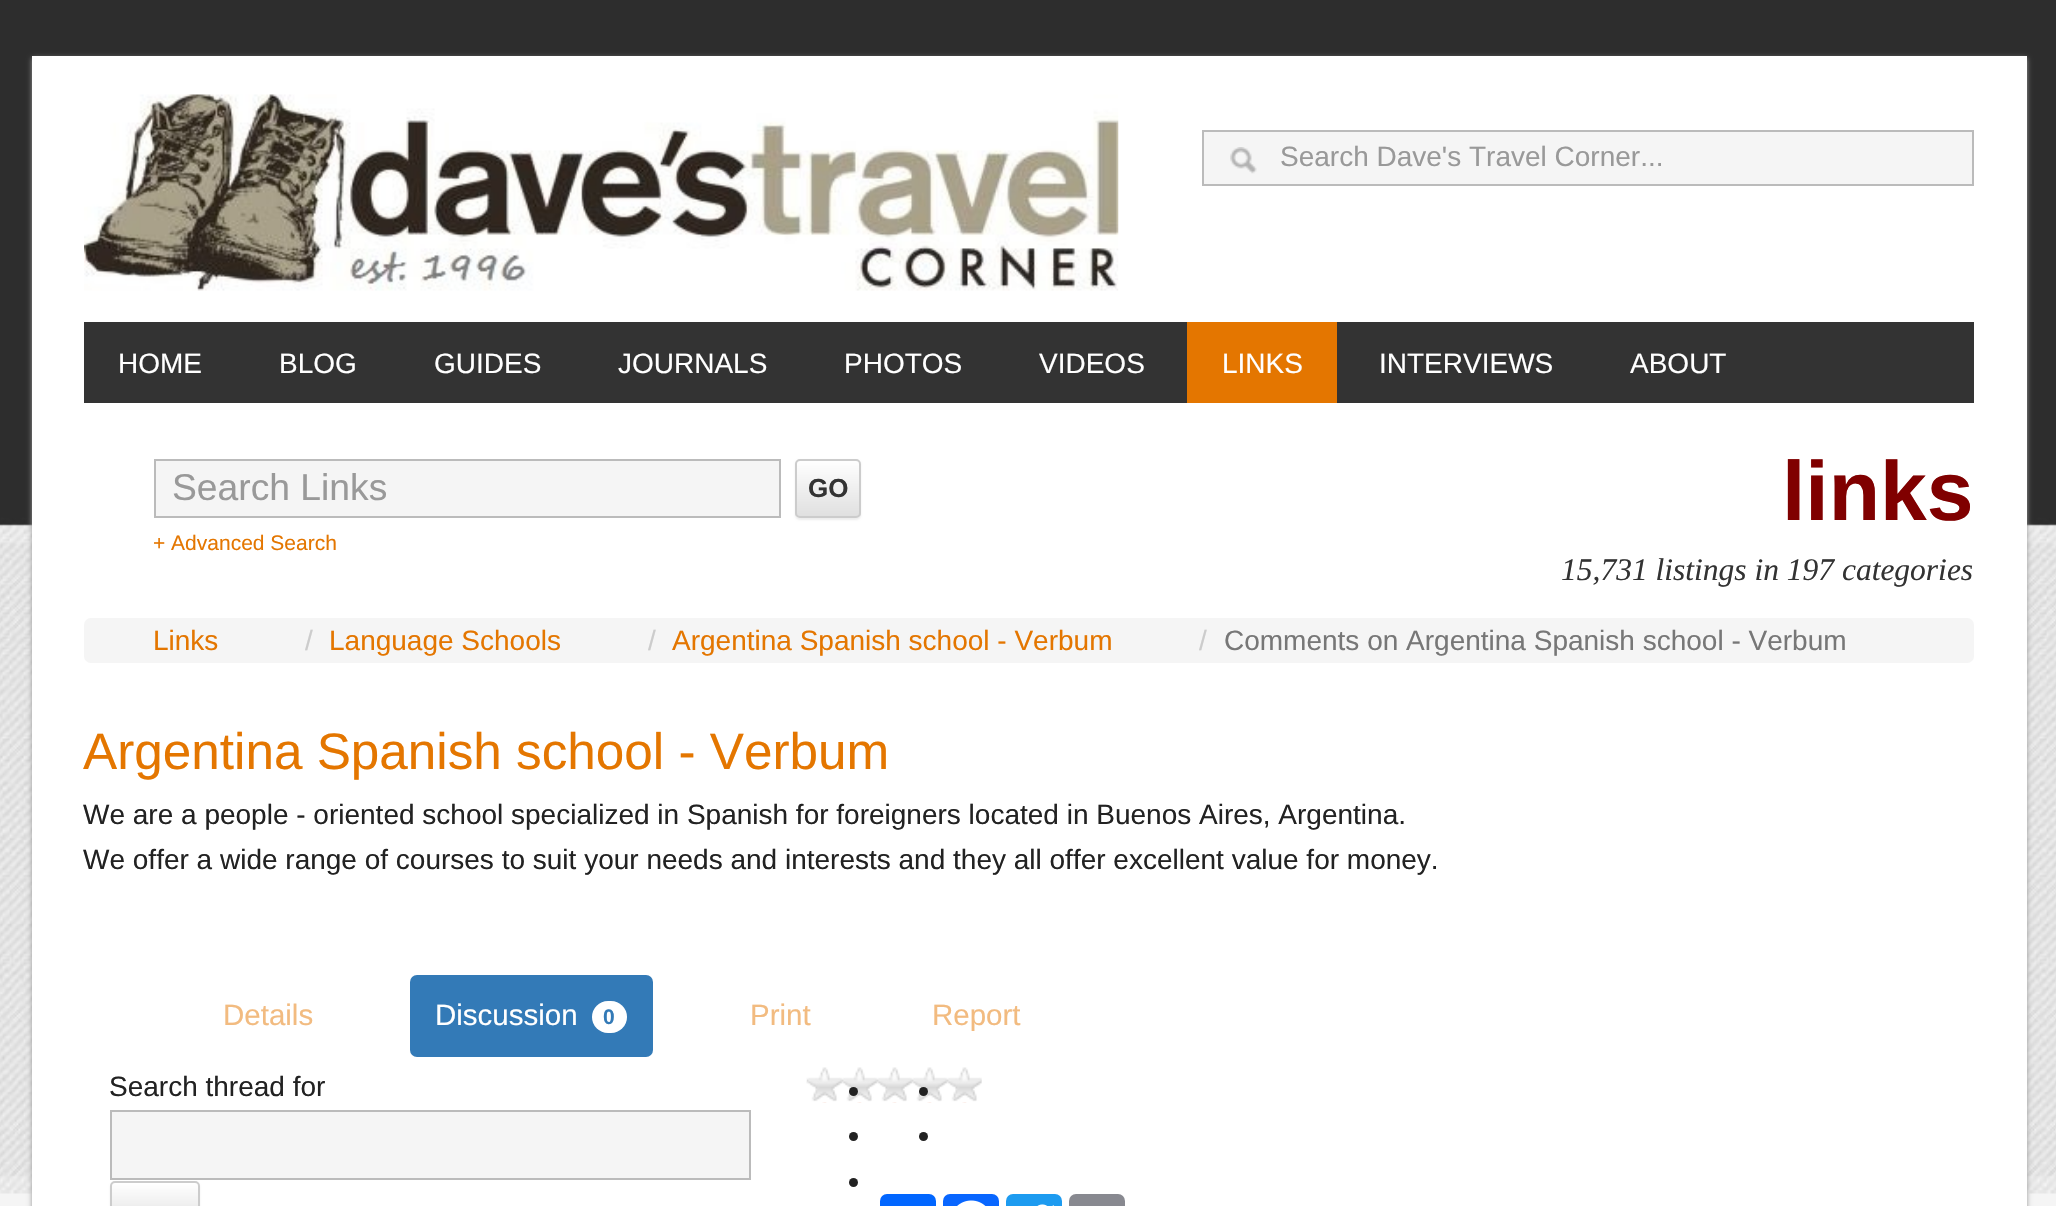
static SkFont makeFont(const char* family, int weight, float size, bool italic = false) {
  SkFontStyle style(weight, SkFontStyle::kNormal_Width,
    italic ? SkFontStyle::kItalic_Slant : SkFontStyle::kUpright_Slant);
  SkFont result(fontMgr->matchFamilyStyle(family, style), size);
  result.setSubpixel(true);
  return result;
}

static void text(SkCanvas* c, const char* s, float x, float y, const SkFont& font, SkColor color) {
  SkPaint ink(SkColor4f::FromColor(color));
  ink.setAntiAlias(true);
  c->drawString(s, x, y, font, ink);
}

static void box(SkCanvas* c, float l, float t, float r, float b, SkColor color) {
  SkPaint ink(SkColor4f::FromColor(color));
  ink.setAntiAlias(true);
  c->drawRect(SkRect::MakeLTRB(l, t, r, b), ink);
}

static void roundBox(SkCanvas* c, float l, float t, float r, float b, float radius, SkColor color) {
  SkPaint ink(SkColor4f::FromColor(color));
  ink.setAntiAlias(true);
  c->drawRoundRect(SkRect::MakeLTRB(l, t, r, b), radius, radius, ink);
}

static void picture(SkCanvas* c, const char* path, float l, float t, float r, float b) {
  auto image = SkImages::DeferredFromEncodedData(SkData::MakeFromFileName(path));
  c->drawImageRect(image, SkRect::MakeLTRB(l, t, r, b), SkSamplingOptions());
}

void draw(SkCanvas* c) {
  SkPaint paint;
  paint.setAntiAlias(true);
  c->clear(0xfff5f5f5);
  picture(c, "img_01.png", 0, 0, 2056, 1194);
  paint.setColor(0xff999999);
  paint.setMaskFilter(SkMaskFilter::MakeBlur(kNormal_SkBlurStyle, 2.5f));
  c->drawRect(SkRect::MakeLTRB(32, 58, 2027, 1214), paint);
  paint.setMaskFilter(nullptr);
  box(c, 32, 56, 2027, 1206, 0xffffffff);
  picture(c, "img_02.png", 84, 94, 1119, 291);
  box(c, 1204, 132, 1972, 184, 0xfff5f5f5);
  picture(c, "img_03.png", 1230, 147, 1257, 174);
  paint.setStyle(SkPaint::kStroke_Style);
  paint.setStrokeWidth(2);
  paint.setColor(0xffbbbbbb);
  c->drawRect(SkRect::MakeLTRB(1203, 131, 1973, 185), paint);
  SkFont face1 = makeFont("Liberation Sans", 400, 28);
  text(c, "Search Dave's Travel Corner...", 1280, 166, face1, 0xff999999);
  box(c, 84, 322, 1974, 403, 0xff333333);
  text(c, "HOME", 118, 373, face1, 0xffffffff);
  text(c, "BLOG", 279, 373, face1, 0xffffffff);
  text(c, "GUIDES", 434, 373, face1, 0xffffffff);
  text(c, "JOURNALS", 618, 373, face1, 0xffffffff);
  text(c, "PHOTOS", 844, 373, face1, 0xffffffff);
  text(c, "VIDEOS", 1039, 373, face1, 0xffffffff);
  box(c, 1187, 322, 1337, 403, 0xffe47600);
  text(c, "LINKS", 1222, 373, face1, 0xffffffff);
  text(c, "INTERVIEWS", 1379, 373, face1, 0xffffffff);
  text(c, "ABOUT", 1630, 373, face1, 0xffffffff);
  paint.setStyle(SkPaint::kFill_Style);
  paint.setColor(0xfff5f5f5);
  c->drawRect(SkRect::MakeLTRB(155, 460, 780, 517), paint);
  paint.setStyle(SkPaint::kStroke_Style);
  paint.setColor(0xffbbbbbb);
  c->drawRect(SkRect::MakeLTRB(155, 460, 780, 517), paint);
  SkFont face2 = makeFont("Liberation Sans", 400, 37.25f);
  text(c, "Search Links", 172, 500, face2, 0xff999999);
  paint.setStyle(SkPaint::kFill_Style);
  paint.setColor(0x12000000);
  paint.setMaskFilter(SkMaskFilter::MakeBlur(kNormal_SkBlurStyle, 1));
  c->drawRoundRect(SkRect::MakeLTRB(795, 460, 861, 520), 5, 5, paint);
  paint.setMaskFilter(nullptr);
  c->save();
  c->clipPath(SkPathBuilder().moveTo(800, 459).lineTo(856, 459).cubicTo(859, 459, 861, 461, 861, 464).lineTo(861, 513).cubicTo(861, 516, 859, 518, 856, 518).lineTo(800, 518).cubicTo(797, 518, 795, 516, 795, 513).lineTo(795, 464).cubicTo(795, 461, 797, 459, 800, 459).close().detach(), true);
  {
    const SkColor colors[] = {0xffffffff, 0xffe0e0e0};
    const float stops[] = {0, 1};
    const SkPoint ends[] = {{828, 460}, {828, 516}};
    paint.setShader(SkGradientShader::MakeLinear(ends, colors, stops, 2, SkTileMode::kClamp));
    paint.setAlpha(255);
  }
  c->drawRect(SkRect::MakeLTRB(795, 460, 861, 516), paint);
  c->restore();
  paint.setStyle(SkPaint::kStroke_Style);
  paint.setShader(nullptr);
  paint.setColor(0xffcccccc);
  c->drawRoundRect(SkRect::MakeLTRB(796, 460, 860, 517), 4, 4, paint);
  SkFont face3 = makeFont("Liberation Sans", 700, 26);
  text(c, "GO", 808, 497, face3, 0xff333333);
  SkFont face4 = makeFont("Liberation Sans", 400, 21);
  text(c, "+ Advanced Search", 153, 550, face4, 0xffe47600);
  SkFont face5 = makeFont("Liberation Sans", 700, 84);
  text(c, "links", 1782, 520, face5, 0xff800000);
  SkFont face6 = makeFont("Liberation Serif", 400, 31.5f, true);
  text(c, "15,731 listings in 197 categories", 1561, 580, face6, 0xff333333);
  roundBox(c, 84, 618, 1974, 663, 7, 0xfff5f5f5);
  text(c, "Links", 153, 650, face1, 0xffe47600);
  text(c, "/", 305, 650, face1, 0xffcccccc);
  text(c, "Language Schools", 329, 650, face1, 0xffe47600);
  text(c, "/", 648, 650, face1, 0xffcccccc);
  text(c, "Argentina Spanish school - Verbum", 672, 650, face1, 0xffe47600);
  text(c, "/", 1199, 650, face1, 0xffcccccc);
  text(c, "Comments on Argentina Spanish school - Verbum", 1224, 650, face1, 0xff777777);
  SkFont face7 = makeFont("Liberation Sans", 400, 51.25f);
  text(c, "Argentina Spanish school - Verbum", 83, 769, face7, 0xffe47600);
  text(c, "We are a people - oriented school specialized in Spanish for foreigners located in Buenos Aires, Argentina.", 83, 824, face1, 0xff222222);
  text(c, "We offer a wide range of courses to suit your needs and interests and they all offer excellent value for money.", 83, 869, face1, 0xff222222);
  SkFont face8 = makeFont("Liberation Sans", 400, 29.5f);
  text(c, "Details", 223, 1025, face8, 0xfff2bb80);
  roundBox(c, 410, 975, 653, 1057, 7, 0xff337ab7);
  text(c, "Discussion", 435, 1025, face8, 0xffffffff);
  roundBox(c, 592, 1001, 627, 1033, 16, 0xffffffff);
  SkFont face9 = makeFont("Liberation Sans", 700, 21);
  text(c, "0", 603, 1024, face9, 0xff337ab7);
  text(c, "Print", 750, 1025, face8, 0xfff2bb80);
  text(c, "Report", 932, 1025, face8, 0xfff2bb80);
  text(c, "Search thread for", 109, 1096, face1, 0xff222222);
  paint.setStyle(SkPaint::kFill_Style);
  paint.setColor(0xfff5f5f5);
  c->drawRect(SkRect::MakeLTRB(111, 1111, 750, 1179), paint);
  paint.setStyle(SkPaint::kStroke_Style);
  paint.setColor(0xffbbbbbb);
  c->drawRect(SkRect::MakeLTRB(111, 1111, 750, 1179), paint);
  paint.setStyle(SkPaint::kFill_Style);
  paint.setColor(0x12000000);
  paint.setMaskFilter(SkMaskFilter::MakeBlur(kNormal_SkBlurStyle, 1));
  c->drawRoundRect(SkRect::MakeLTRB(110, 1183, 200, 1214), 5, 5, paint);
  paint.setMaskFilter(nullptr);
  c->save();
  c->clipPath(SkPathBuilder().moveTo(115, 1181).lineTo(195, 1181).cubicTo(198, 1181, 200, 1183, 200, 1186).lineTo(200, 1222).cubicTo(200, 1225, 198, 1227, 195, 1227).lineTo(115, 1227).cubicTo(112, 1227, 110, 1225, 110, 1222).lineTo(110, 1186).cubicTo(110, 1183, 112, 1181, 115, 1181).close().detach(), true);
  {
    const SkColor colors[] = {0xffffffff, 0xffe0e0e0};
    const float stops[] = {0, 1};
    const SkPoint ends[] = {{155, 1183}, {155, 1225}};
    paint.setShader(SkGradientShader::MakeLinear(ends, colors, stops, 2, SkTileMode::kClamp));
    paint.setAlpha(255);
  }
  c->drawRect(SkRect::MakeLTRB(110, 1183, 200, 1206), paint);
  c->restore();
  paint.setStyle(SkPaint::kStroke_Style);
  paint.setShader(nullptr);
  paint.setColor(0xffcccccc);
  c->drawRoundRect(SkRect::MakeLTRB(111, 1182, 199, 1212), 4, 4, paint);
  picture(c, "img_04.png", 806, 1067, 982, 1103);
  paint.setStyle(SkPaint::kFill_Style);
  paint.setColor(0xff222222);
  c->drawCircle(853.5f, 1091.5f, 4.5f, paint);
  c->drawCircle(923.5f, 1091.5f, 4.5f, paint);
  c->drawCircle(853.5f, 1136.5f, 4.5f, paint);
  c->drawCircle(923.5f, 1136.5f, 4.5f, paint);
  c->drawCircle(853.5f, 1182.5f, 4.5f, paint);
  roundBox(c, 880, 1194, 936, 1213, 7, 0xff0166ff);
  roundBox(c, 943, 1194, 999, 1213, 7, 0xff0866ff);
  picture(c, "img_05.png", 957, 1200, 986, 1206);
  roundBox(c, 1006, 1194, 1062, 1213, 7, 0xff1d9bf0);
  picture(c, "img_06.png", 1037, 1204, 1054, 1206);
  roundBox(c, 1069, 1194, 1125, 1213, 7, 0xff888990);
}
